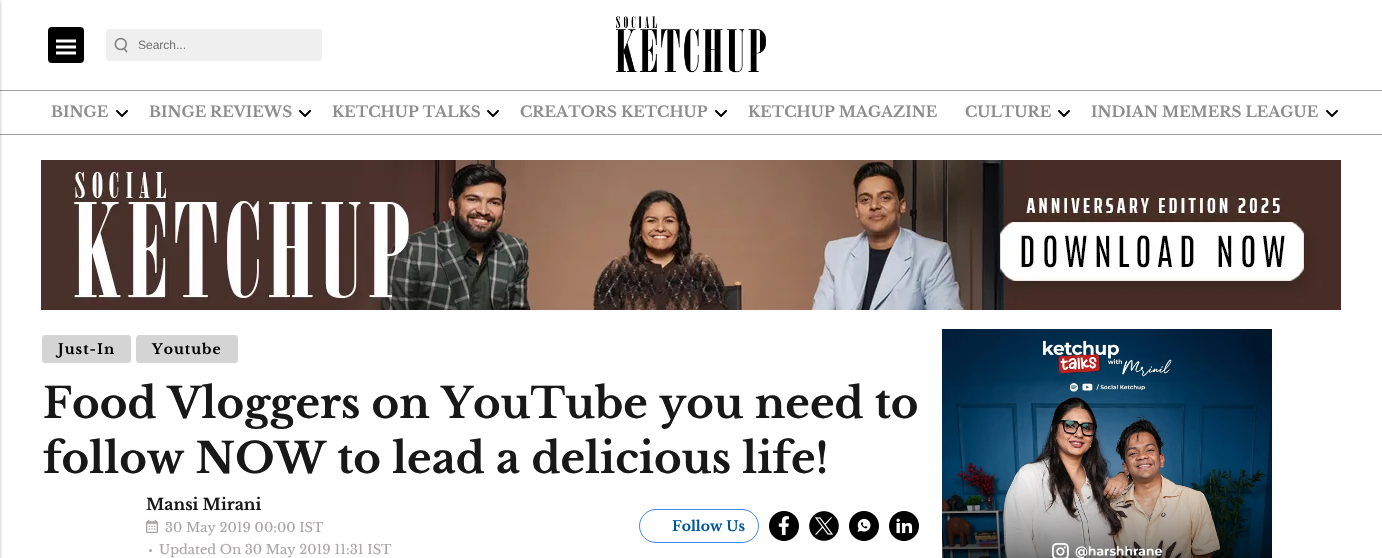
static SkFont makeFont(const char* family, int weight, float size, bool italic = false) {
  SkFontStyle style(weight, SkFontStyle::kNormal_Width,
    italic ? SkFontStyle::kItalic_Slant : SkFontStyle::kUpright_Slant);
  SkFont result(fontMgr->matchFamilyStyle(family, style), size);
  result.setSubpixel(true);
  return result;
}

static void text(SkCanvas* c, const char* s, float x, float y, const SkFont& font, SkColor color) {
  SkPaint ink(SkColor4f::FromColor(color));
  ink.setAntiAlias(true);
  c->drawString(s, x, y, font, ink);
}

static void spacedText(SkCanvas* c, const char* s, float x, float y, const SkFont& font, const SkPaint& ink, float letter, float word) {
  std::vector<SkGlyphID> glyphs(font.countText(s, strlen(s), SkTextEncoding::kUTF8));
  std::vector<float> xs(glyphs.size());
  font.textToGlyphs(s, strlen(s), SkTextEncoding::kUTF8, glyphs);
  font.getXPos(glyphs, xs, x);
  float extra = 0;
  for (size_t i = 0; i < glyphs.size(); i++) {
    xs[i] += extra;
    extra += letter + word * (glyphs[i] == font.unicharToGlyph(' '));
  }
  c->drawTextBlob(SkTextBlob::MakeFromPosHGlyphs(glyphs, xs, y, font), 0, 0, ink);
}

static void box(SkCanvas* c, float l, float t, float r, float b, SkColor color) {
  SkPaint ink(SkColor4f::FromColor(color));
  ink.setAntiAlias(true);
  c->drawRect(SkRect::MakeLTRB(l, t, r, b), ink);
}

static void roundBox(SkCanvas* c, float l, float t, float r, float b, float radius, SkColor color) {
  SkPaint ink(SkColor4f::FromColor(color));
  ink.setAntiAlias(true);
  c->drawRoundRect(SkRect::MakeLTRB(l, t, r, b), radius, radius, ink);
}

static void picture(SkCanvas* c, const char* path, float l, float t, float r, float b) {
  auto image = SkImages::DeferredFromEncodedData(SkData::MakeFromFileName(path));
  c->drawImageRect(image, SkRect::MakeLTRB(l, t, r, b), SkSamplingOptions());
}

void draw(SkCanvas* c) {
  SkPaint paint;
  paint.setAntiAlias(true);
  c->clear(0xffffffff);
  box(c, 0, 90, 1382, 91, 0xffa0a0a0);
  box(c, 0, 134, 1382, 135, 0xffa0a0a0);
  paint.setColor(0x38000000);
  paint.setMaskFilter(SkMaskFilter::MakeBlur(kNormal_SkBlurStyle, 1.5f));
  c->drawRect(SkRect::MakeLTRB(-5, 2, 0, 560), paint);
  paint.setMaskFilter(nullptr);
  paint.setColor(0x1f000000);
  paint.setMaskFilter(SkMaskFilter::MakeBlur(kNormal_SkBlurStyle, 1.5f));
  c->drawRect(SkRect::MakeLTRB(-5, 0, 0, 558), paint);
  paint.setMaskFilter(nullptr);
  roundBox(c, 48, 27, 84, 63, 4, 0xff000000);
  paint.setStyle(SkPaint::kStroke_Style);
  paint.setStrokeWidth(3);
  paint.setColor(0xffffffff);
  c->drawPath(SkPathBuilder().moveTo(56, 53).lineTo(76, 53).moveTo(56, 47).lineTo(76, 47).moveTo(56, 41).lineTo(76, 41).detach(), paint);
  roundBox(c, 106, 29, 322, 61, 4, 0xffefefef);
  picture(c, "img_01.png", 114, 37, 128, 53);
  roundBox(c, 136, 29, 322, 61, 4, 0xffefefef);
  SkFont face1 = makeFont("Liberation Sans", 400, 12);
  text(c, "Search...", 138, 49, face1, 0xff757575);
  picture(c, "img_02.png", 616, 16, 766, 73);
  SkFont face2 = makeFont("Libre Baskerville", 700, 15);
  text(c, "BINGE", 51, 117, face2, 0xff8d8d8d);
  paint.setStrokeWidth(2);
  paint.setStrokeCap(SkPaint::kRound_Cap);
  paint.setStrokeJoin(SkPaint::kRound_Join);
  paint.setColor(0xff000000);
  c->drawPath(SkPathBuilder().moveTo(117, 111).lineTo(122, 116).lineTo(127, 111).detach(), paint);
  text(c, "BINGE REVIEWS", 149, 117, face2, 0xff8d8d8d);
  c->drawPath(SkPathBuilder().moveTo(300, 111).lineTo(305, 116).lineTo(310, 111).detach(), paint);
  text(c, "KETCHUP TALKS", 332, 117, face2, 0xff8d8d8d);
  c->drawPath(SkPathBuilder().moveTo(488, 111).lineTo(493, 116).lineTo(498, 111).detach(), paint);
  text(c, "CREATORS KETCHUP", 520, 117, face2, 0xff8d8d8d);
  c->drawPath(SkPathBuilder().moveTo(716, 111).lineTo(721, 116).lineTo(726, 111).detach(), paint);
  text(c, "KETCHUP MAGAZINE", 748, 117, face2, 0xff8d8d8d);
  text(c, "CULTURE", 965, 117, face2, 0xff8d8d8d);
  c->drawPath(SkPathBuilder().moveTo(1059, 111).lineTo(1064, 116).lineTo(1069, 111).detach(), paint);
  text(c, "INDIAN MEMERS LEAGUE", 1091, 117, face2, 0xff8d8d8d);
  c->drawPath(SkPathBuilder().moveTo(1327, 111).lineTo(1332, 116).lineTo(1337, 111).detach(), paint);
  picture(c, "img_03.png", 41, 160, 1341, 310);
  paint.setStyle(SkPaint::kFill_Style);
  paint.setColor(0xffd4d4d4);
  c->drawRoundRect(SkRect::MakeLTRB(41.5f, 334.5f, 131.5f, 363.5f), 3.5f, 3.5f, paint);
  paint.setStyle(SkPaint::kStroke_Style);
  paint.setStrokeWidth(1);
  paint.setStrokeCap(SkPaint::kButt_Cap);
  paint.setStrokeJoin(SkPaint::kMiter_Join);
  paint.setColor(0xffffffff);
  c->drawRoundRect(SkRect::MakeLTRB(41.5f, 334.5f, 131.5f, 363.5f), 3.5f, 3.5f, paint);
  SkFont face3 = makeFont("Libre Baskerville", 700, 14);
  paint.setStyle(SkPaint::kFill_Style);
  paint.setColor(0xff000000);
  spacedText(c, "Just-In", 58, 354, face3, paint, 1, 0);
  paint.setColor(0xffd4d4d4);
  c->drawRoundRect(SkRect::MakeLTRB(135.5f, 334.5f, 238.5f, 363.5f), 3.5f, 3.5f, paint);
  paint.setStyle(SkPaint::kStroke_Style);
  paint.setColor(0xffffffff);
  c->drawRoundRect(SkRect::MakeLTRB(135.5f, 334.5f, 238.5f, 363.5f), 3.5f, 3.5f, paint);
  paint.setStyle(SkPaint::kFill_Style);
  paint.setColor(0xff000000);
  spacedText(c, "Youtube", 152, 354, face3, paint, 1, 0);
  SkFont face4 = makeFont("Libre Baskerville", 700, 42);
  text(c, "Food Vloggers on YouTube you need to", 43, 418, face4, 0xff181818);
  text(c, "follow NOW to lead a delicious life!", 43, 473, face4, 0xff181818);
  SkFont face5 = makeFont("Libre Baskerville", 700, 16);
  text(c, "Mansi Mirani", 146, 510, face5, 0xff181818);
  picture(c, "img_04.png", 146, 519, 158, 534);
  SkFont face6 = makeFont("Libre Baskerville", 400, 13);
  text(c, "30 May 2019 00:00 IST", 165, 532, face6, 0xffa9a5a5);
  text(c, "Updated On 30 May 2019 11:31 IST", 159, 554, face6, 0xffa9a5a5);
  paint.setColor(0xffaaa7a7);
  c->drawCircle(150.5f, 550.5f, 1.5f, paint);
  paint.setStyle(SkPaint::kStroke_Style);
  paint.setColor(0xff4086f4);
  c->drawRoundRect(SkRect::MakeLTRB(639.5f, 509.5f, 758.5f, 542.5f), 16.5f, 16.5f, paint);
  text(c, "Follow Us", 672, 531, face3, 0xff01579b);
  picture(c, "img_05.png", 769, 511, 799, 541);
  picture(c, "img_06.png", 809, 511, 839, 541);
  picture(c, "img_07.png", 849, 511, 879, 541);
  picture(c, "img_08.png", 889, 511, 919, 541);
  picture(c, "img_09.png", 942, 329, 1272, 558);
}
